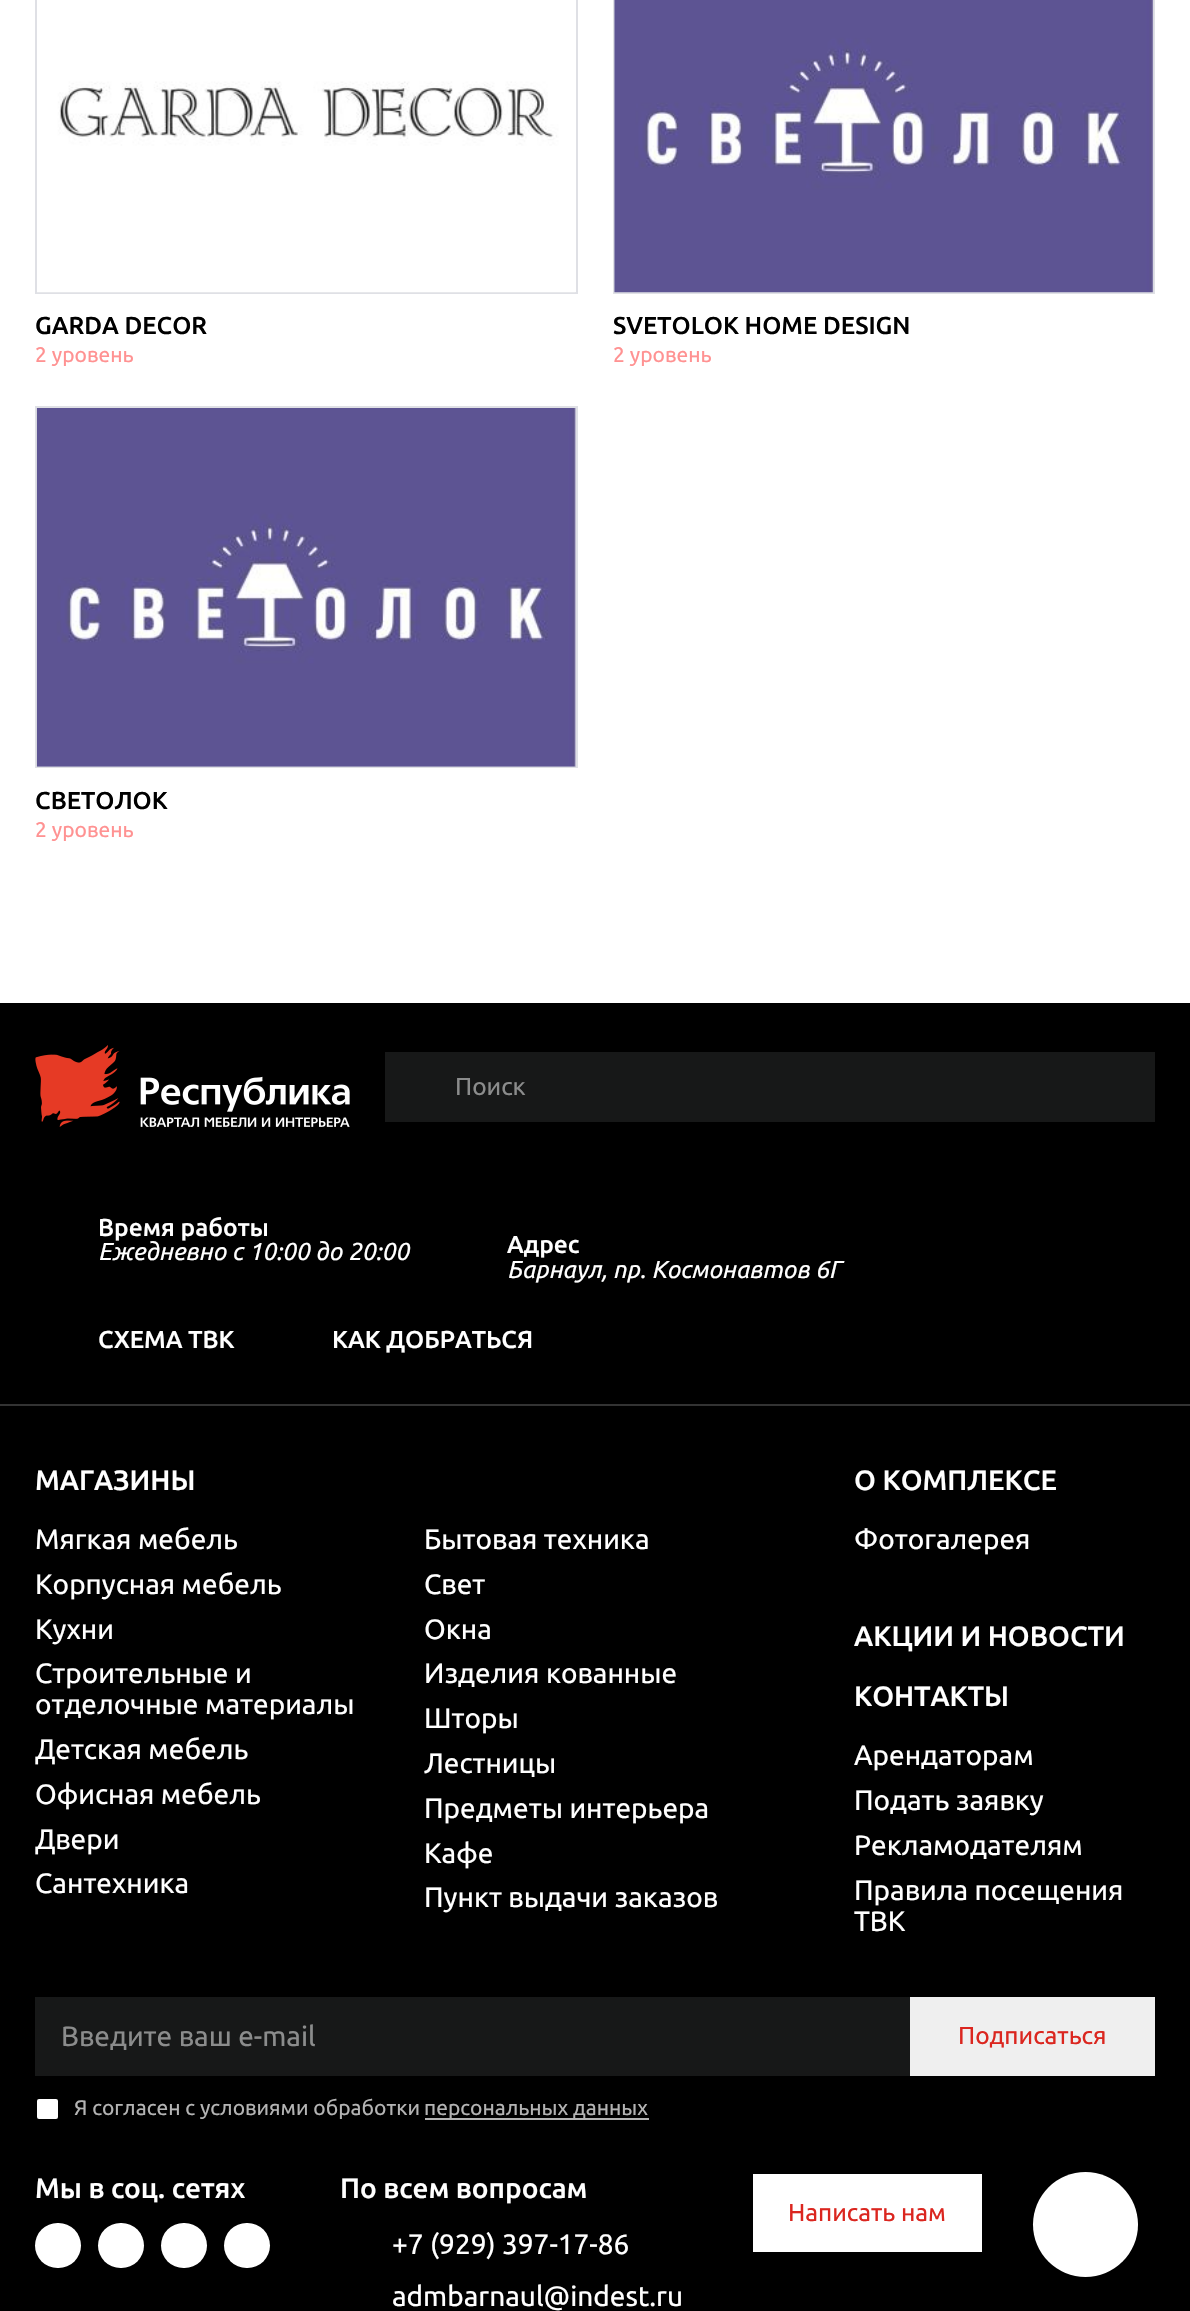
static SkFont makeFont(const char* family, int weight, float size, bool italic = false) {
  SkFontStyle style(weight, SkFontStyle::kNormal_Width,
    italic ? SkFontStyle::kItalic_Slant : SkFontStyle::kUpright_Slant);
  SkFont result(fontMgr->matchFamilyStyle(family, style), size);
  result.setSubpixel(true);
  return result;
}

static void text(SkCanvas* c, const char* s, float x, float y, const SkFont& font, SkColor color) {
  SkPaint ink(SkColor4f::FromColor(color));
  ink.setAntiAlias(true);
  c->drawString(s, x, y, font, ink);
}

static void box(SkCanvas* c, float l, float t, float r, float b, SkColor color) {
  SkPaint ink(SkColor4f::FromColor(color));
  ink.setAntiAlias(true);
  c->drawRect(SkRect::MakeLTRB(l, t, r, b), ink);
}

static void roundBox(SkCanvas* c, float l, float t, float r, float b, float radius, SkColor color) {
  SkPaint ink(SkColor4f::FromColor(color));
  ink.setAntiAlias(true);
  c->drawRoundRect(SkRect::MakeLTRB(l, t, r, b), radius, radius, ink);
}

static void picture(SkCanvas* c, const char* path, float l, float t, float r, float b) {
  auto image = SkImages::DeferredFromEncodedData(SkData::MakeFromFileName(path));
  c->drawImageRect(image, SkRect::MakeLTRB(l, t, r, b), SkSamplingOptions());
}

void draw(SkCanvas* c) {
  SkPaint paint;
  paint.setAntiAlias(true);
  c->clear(0xffffffff);
  paint.setStyle(SkPaint::kStroke_Style);
  paint.setStrokeWidth(2);
  paint.setColor(0xffdfe0e5);
  c->drawRect(SkRect::MakeLTRB(36, -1, 577, 293), paint);
  picture(c, "img_01.png", 37, 81, 576, 293);
  SkFont face1 = makeFont("Ubuntu", 500, 24.5f);
  text(c, "GARDA DECOR", 35, 334, face1, 0xff000000);
  SkFont face2 = makeFont("Ubuntu", 400, 21);
  text(c, "2 уровень", 35, 362, face2, 0xffff9292);
  c->drawRect(SkRect::MakeLTRB(614, -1, 1154, 293), paint);
  picture(c, "img_02.png", 614, 0, 1154, 293);
  text(c, "SVETOLOK HOME DESIGN", 613, 334, face1, 0xff000000);
  text(c, "2 уровень", 613, 362, face2, 0xffff9292);
  c->drawRect(SkRect::MakeLTRB(36, 407, 577, 767), paint);
  picture(c, "img_03.png", 36, 408, 576, 767);
  text(c, "СВЕТОЛОК", 35, 809, face1, 0xff000000);
  text(c, "2 уровень", 35, 837, face2, 0xffff9292);
  box(c, 0, 1003, 1190, 2311, 0xff000000);
  picture(c, "img_04.png", 35, 1045, 350, 1127);
  box(c, 385, 1052, 1155, 1122, 0xff171818);
  SkFont face3 = makeFont("Ubuntu", 400, 24.5f);
  text(c, "Поиск", 455, 1095, face3, 0xff8b8c8c);
  text(c, "Время работы", 98, 1236, face1, 0xffffffff);
  SkFont face4 = makeFont("Ubuntu", 400, 24.5f, true);
  text(c, "Ежедневно с 10:00 до 20:00", 98, 1260, face4, 0xffffffff);
  text(c, "Адрес", 507, 1253, face1, 0xffffffff);
  text(c, "Барнаул, пр. Космонавтов 6Г", 507, 1278, face4, 0xffffffff);
  text(c, "СХЕМА ТВК", 98, 1348, face1, 0xffffffff);
  text(c, "КАК ДОБРАТЬСЯ", 332, 1348, face1, 0xffffffff);
  box(c, 0, 1404, 1190, 1406, 0xff333333);
  SkFont face5 = makeFont("Ubuntu", 500, 28);
  text(c, "МАГАЗИНЫ", 35, 1490, face5, 0xffffffff);
  SkFont face6 = makeFont("Ubuntu", 400, 28);
  text(c, "Мягкая мебель", 35, 1549, face6, 0xffffffff);
  text(c, "Бытовая техника", 424, 1549, face6, 0xffffffff);
  text(c, "Корпусная мебель", 35, 1594, face6, 0xffffffff);
  text(c, "Свет", 424, 1594, face6, 0xffffffff);
  text(c, "Кухни", 35, 1639, face6, 0xffffffff);
  text(c, "Окна", 424, 1639, face6, 0xffffffff);
  text(c, "Строительные и", 35, 1683, face6, 0xffffffff);
  text(c, "отделочные материалы", 35, 1714, face6, 0xffffffff);
  text(c, "Изделия кованные", 424, 1683, face6, 0xffffffff);
  text(c, "Шторы", 424, 1728, face6, 0xffffffff);
  text(c, "Детская мебель", 35, 1759, face6, 0xffffffff);
  text(c, "Лестницы", 424, 1773, face6, 0xffffffff);
  text(c, "Офисная мебель", 35, 1804, face6, 0xffffffff);
  text(c, "Предметы интерьера", 424, 1818, face6, 0xffffffff);
  text(c, "Двери", 35, 1849, face6, 0xffffffff);
  text(c, "Кафе", 424, 1863, face6, 0xffffffff);
  text(c, "Сантехника", 35, 1893, face6, 0xffffffff);
  text(c, "Пункт выдачи заказов", 424, 1907, face6, 0xffffffff);
  text(c, "О КОМПЛЕКСЕ", 854, 1490, face5, 0xffffffff);
  text(c, "Фотогалерея", 854, 1549, face6, 0xffffffff);
  text(c, "АКЦИИ И НОВОСТИ", 854, 1646, face5, 0xffffffff);
  text(c, "КОНТАКТЫ", 854, 1706, face5, 0xffffffff);
  text(c, "Арендаторам", 854, 1765, face6, 0xffffffff);
  text(c, "Подать заявку", 854, 1810, face6, 0xffffffff);
  text(c, "Рекламодателям", 854, 1855, face6, 0xffffffff);
  text(c, "Правила посещения", 854, 1900, face6, 0xffffffff);
  text(c, "ТВК", 854, 1931, face6, 0xffffffff);
  box(c, 35, 1997, 910, 2076, 0xff171818);
  text(c, "Введите ваш e-mail", 61, 2046, face6, 0xff8b8c8c);
  box(c, 910, 1997, 1155, 2076, 0xffefefef);
  text(c, "Подписаться", 958, 2044, face3, 0xffdb261f);
  paint.setStyle(SkPaint::kFill_Style);
  paint.setColor(0xffffffff);
  c->drawRoundRect(SkRect::MakeLTRB(36, 2098, 59, 2120), 3, 3, paint);
  paint.setStyle(SkPaint::kStroke_Style);
  paint.setColor(0xff000000);
  c->drawRoundRect(SkRect::MakeLTRB(36, 2098, 59, 2120), 3, 3, paint);
  text(c, "Я согласен с условиями обработки", 74, 2115, face2, 0xffb3b3b3);
  box(c, 425, 2118, 649, 2120, 0xffb3b3b3);
  text(c, "персональных данных", 424, 2115, face2, 0xffb3b3b3);
  text(c, "Мы в соц. сетях", 35, 2198, face5, 0xffffffff);
  roundBox(c, 35, 2223, 81, 2268, 22.5f, 0xffffffff);
  roundBox(c, 98, 2223, 144, 2268, 22.5f, 0xffffffff);
  roundBox(c, 161, 2223, 207, 2268, 22.5f, 0xffffffff);
  roundBox(c, 224, 2223, 270, 2268, 22.5f, 0xffffffff);
  text(c, "По всем вопросам", 340, 2198, face5, 0xffffffff);
  text(c, "+7 (929) 397-17-86", 392, 2254, face6, 0xffffffff);
  text(c, "admbarnaul@indest.ru", 392, 2306, face6, 0xffffffff);
  box(c, 753, 2174, 982, 2252, 0xffffffff);
  text(c, "Написать нам", 788, 2221, face3, 0xffdb261f);
  paint.setStyle(SkPaint::kFill_Style);
  paint.setColor(0xffffffff);
  c->drawCircle(1085.5f, 2224.5f, 52.5f, paint);
}
